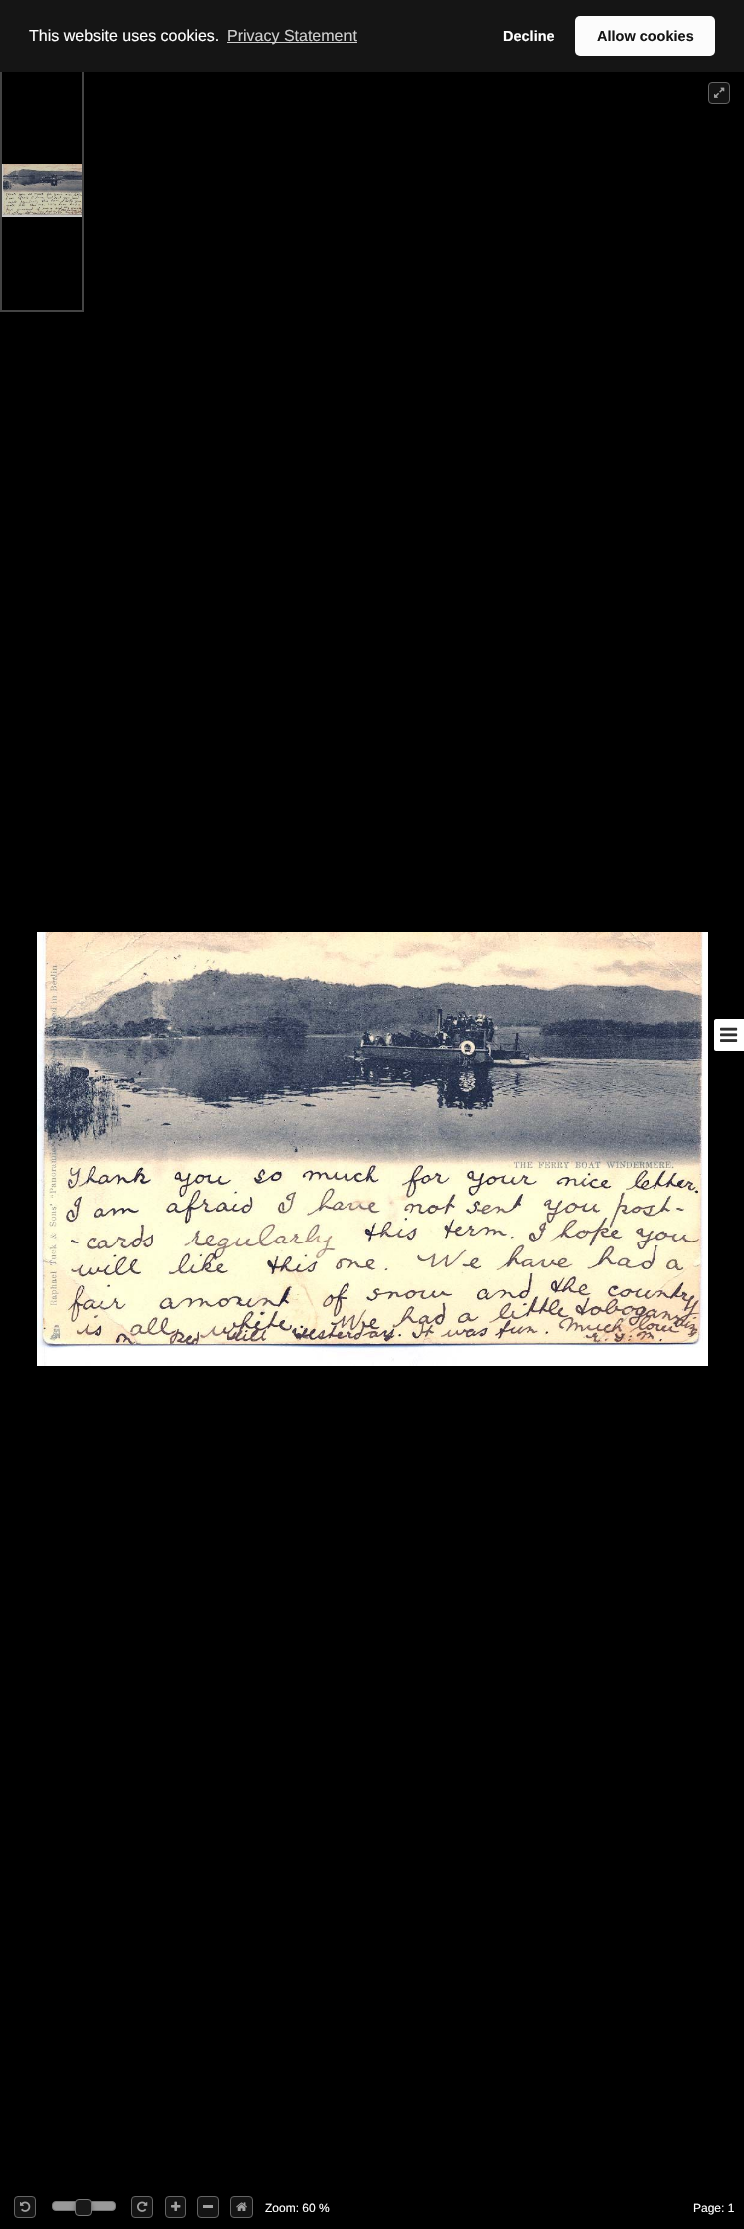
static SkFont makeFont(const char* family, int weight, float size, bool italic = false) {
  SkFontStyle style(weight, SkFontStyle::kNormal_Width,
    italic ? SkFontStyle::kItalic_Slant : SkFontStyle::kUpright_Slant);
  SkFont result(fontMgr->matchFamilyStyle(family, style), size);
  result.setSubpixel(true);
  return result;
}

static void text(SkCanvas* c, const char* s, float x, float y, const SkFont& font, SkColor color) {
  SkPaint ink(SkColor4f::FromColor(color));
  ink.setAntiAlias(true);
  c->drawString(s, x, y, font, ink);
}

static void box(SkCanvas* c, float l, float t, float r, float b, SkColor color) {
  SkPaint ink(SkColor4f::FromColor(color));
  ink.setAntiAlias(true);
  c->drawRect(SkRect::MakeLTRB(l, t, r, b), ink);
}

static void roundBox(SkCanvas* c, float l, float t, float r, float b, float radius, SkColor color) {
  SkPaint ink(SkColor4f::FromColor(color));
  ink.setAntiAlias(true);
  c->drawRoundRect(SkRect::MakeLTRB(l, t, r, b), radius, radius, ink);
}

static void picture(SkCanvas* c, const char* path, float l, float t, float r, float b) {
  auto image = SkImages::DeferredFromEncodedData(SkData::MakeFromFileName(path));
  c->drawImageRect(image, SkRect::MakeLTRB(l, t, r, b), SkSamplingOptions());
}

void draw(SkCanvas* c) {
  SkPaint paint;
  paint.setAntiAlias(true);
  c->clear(0xff000000);
  paint.setStyle(SkPaint::kStroke_Style);
  paint.setStrokeWidth(2);
  paint.setColor(0xff444444);
  c->drawRect(SkRect::MakeLTRB(1, 69, 83, 311), paint);
  box(c, 0, 0, 744, 72, 0xff151515);
  SkFont face1 = makeFont("Liberation Sans", 400, 16);
  text(c, "This website uses cookies.", 29, 41, face1, 0xffffffff);
  box(c, 227, 42, 357, 43, 0xffcecece);
  text(c, "Privacy Statement", 227, 41, face1, 0xffcecece);
  SkFont face2 = makeFont("Liberation Sans", 700, 14.5f);
  text(c, "Decline", 503, 41, face2, 0xffffffff);
  roundBox(c, 575, 16, 715, 56, 5, 0xfffcfcfc);
  text(c, "Allow cookies", 597, 41, face2, 0xff151515);
  paint.setStyle(SkPaint::kFill_Style);
  paint.setColor(0xffffffff);
  c->drawPath(SkPathBuilder().moveTo(716, 1019).lineTo(744, 1019).lineTo(744, 1051).lineTo(716, 1051).cubicTo(715, 1051, 714, 1050, 714, 1049).lineTo(714, 1021).cubicTo(714, 1020, 715, 1019, 716, 1019).close().detach(), paint);
  picture(c, "img_01.png", 720, 1027, 738, 1042);
  picture(c, "img_02.png", 2, 164, 82, 217);
  picture(c, "img_03.png", 37, 932, 708, 1366);
  paint.setColor(0xff141414);
  c->drawRoundRect(SkRect::MakeLTRB(708.5f, 82.5f, 729.5f, 103.5f), 3.5f, 3.5f, paint);
  paint.setStyle(SkPaint::kStroke_Style);
  paint.setStrokeWidth(1);
  paint.setColor(0xff646464);
  c->drawRoundRect(SkRect::MakeLTRB(708.5f, 82.5f, 729.5f, 103.5f), 3.5f, 3.5f, paint);
  picture(c, "img_04.png", 714, 87, 725, 98);
  paint.setStyle(SkPaint::kFill_Style);
  paint.setColor(0xff141414);
  c->drawRoundRect(SkRect::MakeLTRB(14.5f, 2196.5f, 35.5f, 2217.5f), 3.5f, 3.5f, paint);
  paint.setStyle(SkPaint::kStroke_Style);
  paint.setColor(0xff646464);
  c->drawRoundRect(SkRect::MakeLTRB(14.5f, 2196.5f, 35.5f, 2217.5f), 3.5f, 3.5f, paint);
  picture(c, "img_05.png", 20, 2201, 31, 2212);
  paint.setStyle(SkPaint::kFill_Style);
  paint.setColor(0xff999999);
  c->drawRoundRect(SkRect::MakeLTRB(52.5f, 2201.5f, 115.5f, 2210.5f), 3.5f, 3.5f, paint);
  paint.setStyle(SkPaint::kStroke_Style);
  paint.setColor(0xff767676);
  c->drawRoundRect(SkRect::MakeLTRB(52.5f, 2201.5f, 115.5f, 2210.5f), 3.5f, 3.5f, paint);
  paint.setStyle(SkPaint::kFill_Style);
  paint.setColor(0x59000000);
  paint.setMaskFilter(SkMaskFilter::MakeBlur(kNormal_SkBlurStyle, 2.5f));
  c->drawRoundRect(SkRect::MakeLTRB(75, 2203, 92, 2220), 4, 4, paint);
  paint.setMaskFilter(nullptr);
  paint.setColor(0xff191919);
  c->drawRoundRect(SkRect::MakeLTRB(75.5f, 2199.5f, 91.5f, 2215.5f), 3.5f, 3.5f, paint);
  paint.setStyle(SkPaint::kStroke_Style);
  paint.setColor(0xff767676);
  c->drawRoundRect(SkRect::MakeLTRB(75.5f, 2199.5f, 91.5f, 2215.5f), 3.5f, 3.5f, paint);
  paint.setStyle(SkPaint::kFill_Style);
  paint.setColor(0xff141414);
  c->drawRoundRect(SkRect::MakeLTRB(131.5f, 2196.5f, 152.5f, 2217.5f), 3.5f, 3.5f, paint);
  paint.setStyle(SkPaint::kStroke_Style);
  paint.setColor(0xff646464);
  c->drawRoundRect(SkRect::MakeLTRB(131.5f, 2196.5f, 152.5f, 2217.5f), 3.5f, 3.5f, paint);
  picture(c, "img_06.png", 137, 2201, 148, 2212);
  paint.setStyle(SkPaint::kFill_Style);
  paint.setColor(0xff141414);
  c->drawRoundRect(SkRect::MakeLTRB(165.5f, 2196.5f, 185.5f, 2217.5f), 3.5f, 3.5f, paint);
  paint.setStyle(SkPaint::kStroke_Style);
  paint.setColor(0xff646464);
  c->drawRoundRect(SkRect::MakeLTRB(165.5f, 2196.5f, 185.5f, 2217.5f), 3.5f, 3.5f, paint);
  picture(c, "img_07.png", 171, 2201, 181, 2211);
  paint.setStyle(SkPaint::kFill_Style);
  paint.setColor(0xff141414);
  c->drawRoundRect(SkRect::MakeLTRB(197.5f, 2196.5f, 218.5f, 2217.5f), 3.5f, 3.5f, paint);
  paint.setStyle(SkPaint::kStroke_Style);
  paint.setColor(0xff646464);
  c->drawRoundRect(SkRect::MakeLTRB(197.5f, 2196.5f, 218.5f, 2217.5f), 3.5f, 3.5f, paint);
  box(c, 203, 2205, 213, 2208, 0xffa1a1a1);
  paint.setStyle(SkPaint::kFill_Style);
  paint.setColor(0xff141414);
  c->drawRoundRect(SkRect::MakeLTRB(230.5f, 2196.5f, 252.5f, 2217.5f), 3.5f, 3.5f, paint);
  paint.setStyle(SkPaint::kStroke_Style);
  paint.setColor(0xff646464);
  c->drawRoundRect(SkRect::MakeLTRB(230.5f, 2196.5f, 252.5f, 2217.5f), 3.5f, 3.5f, paint);
  picture(c, "img_08.png", 236, 2202, 247, 2211);
  SkFont face3 = makeFont("Liberation Sans", 400, 12);
  text(c, "Zoom: 60 %", 265, 2212, face3, 0xffffffff);
  text(c, "Page: 1", 693, 2212, face3, 0xffffffff);
}
